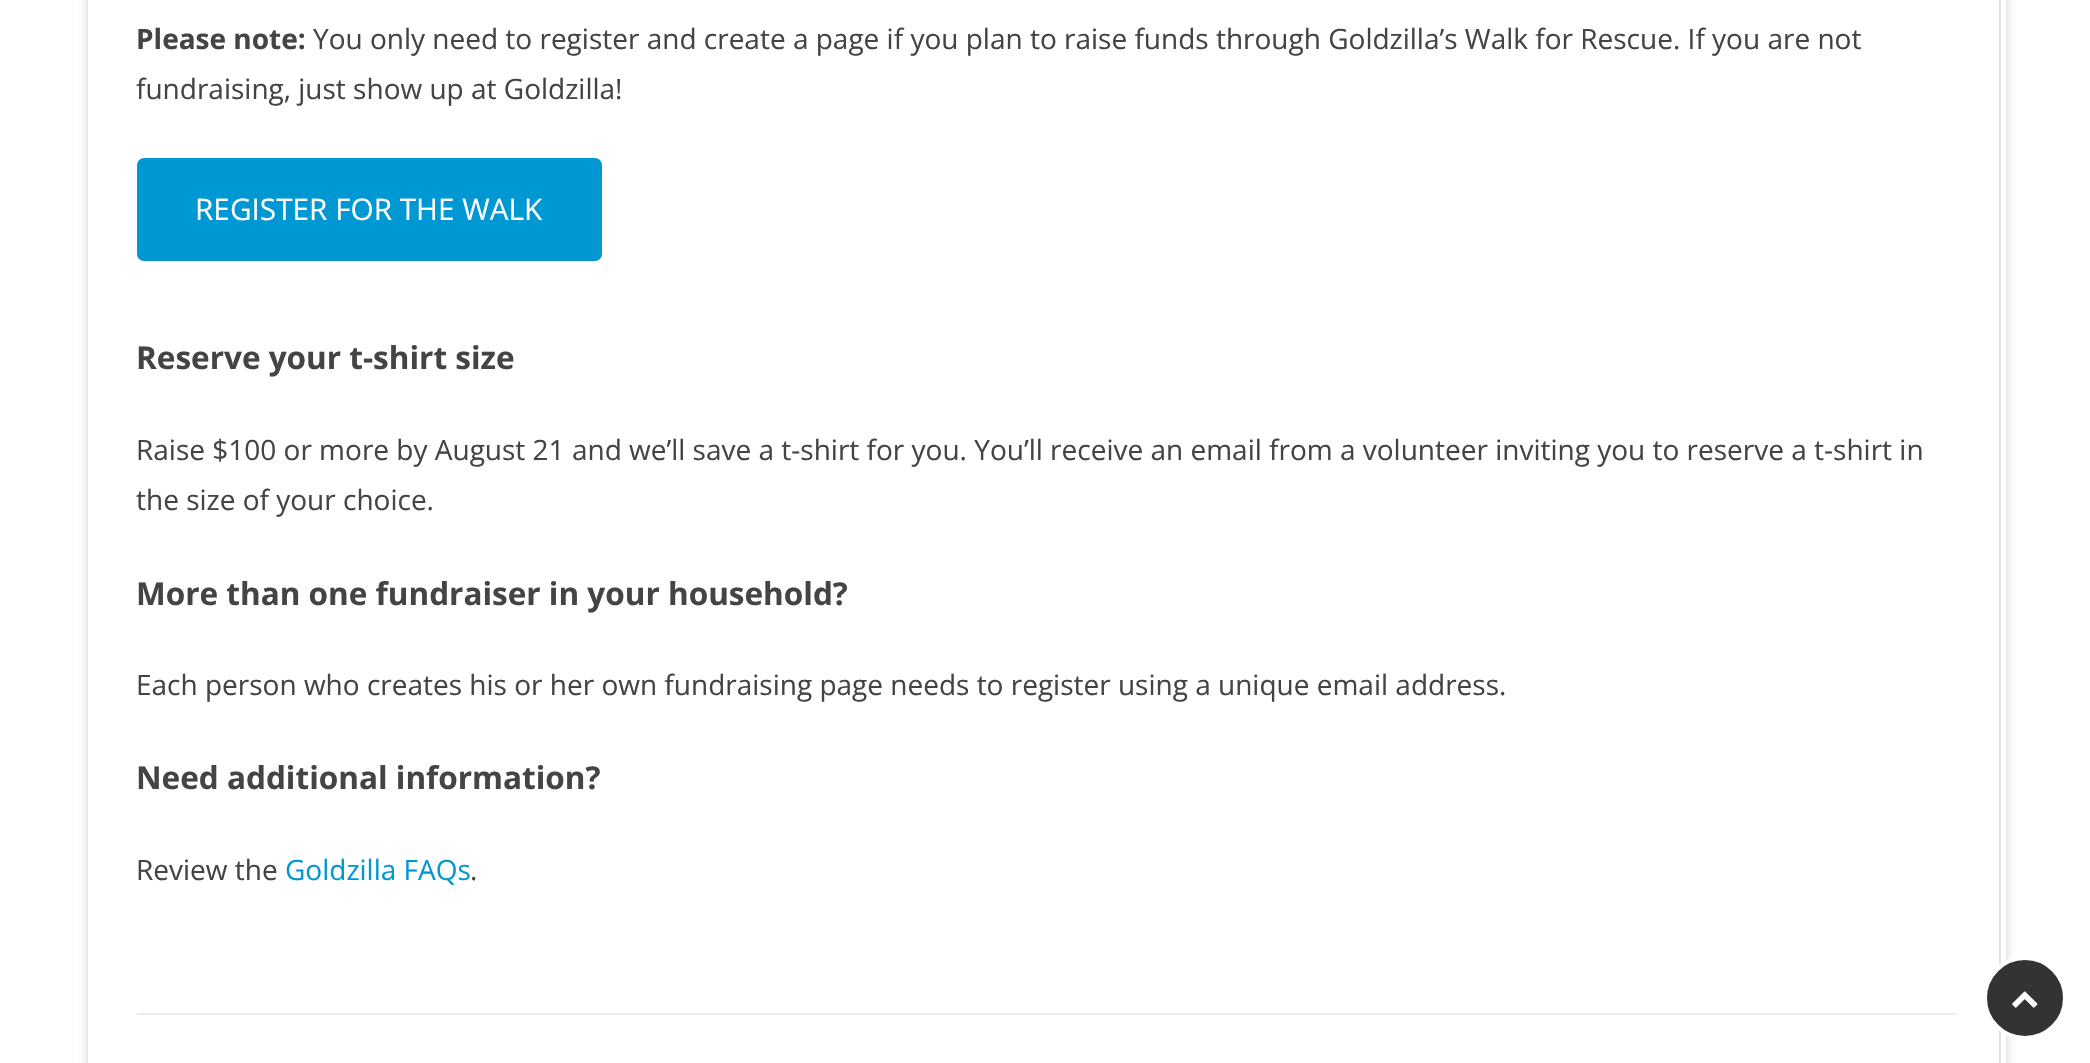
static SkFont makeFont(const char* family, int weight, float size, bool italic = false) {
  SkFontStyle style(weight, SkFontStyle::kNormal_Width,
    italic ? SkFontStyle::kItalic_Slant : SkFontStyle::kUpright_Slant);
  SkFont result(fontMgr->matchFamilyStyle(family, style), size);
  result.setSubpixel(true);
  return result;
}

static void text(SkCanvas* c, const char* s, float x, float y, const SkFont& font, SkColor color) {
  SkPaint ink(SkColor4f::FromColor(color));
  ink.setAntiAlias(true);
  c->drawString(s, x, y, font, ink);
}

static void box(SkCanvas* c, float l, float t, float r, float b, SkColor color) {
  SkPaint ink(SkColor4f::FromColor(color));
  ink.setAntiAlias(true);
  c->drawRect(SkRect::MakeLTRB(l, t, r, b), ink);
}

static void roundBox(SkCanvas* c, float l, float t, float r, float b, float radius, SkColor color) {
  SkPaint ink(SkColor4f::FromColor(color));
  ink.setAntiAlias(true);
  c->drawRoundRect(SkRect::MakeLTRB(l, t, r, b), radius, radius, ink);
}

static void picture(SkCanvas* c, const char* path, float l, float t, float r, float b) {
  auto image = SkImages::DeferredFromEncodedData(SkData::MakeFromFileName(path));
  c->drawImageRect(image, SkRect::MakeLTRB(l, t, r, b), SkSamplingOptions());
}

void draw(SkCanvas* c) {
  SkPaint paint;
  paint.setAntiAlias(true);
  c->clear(0xffffffff);
  paint.setColor(0x4d646464);
  paint.setMaskFilter(SkMaskFilter::MakeBlur(kNormal_SkBlurStyle, 5));
  c->drawRect(SkRect::MakeLTRB(88, -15, 2006, 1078), paint);
  paint.setMaskFilter(nullptr);
  box(c, 88, 0, 2006, 1063, 0xffffffff);
  box(c, 1999, 0, 2001, 1063, 0xffe0e0e0);
  box(c, 137, 1013, 1957, 1015, 0xffededed);
  SkFont face1 = makeFont("Open Sans", 700, 28);
  text(c, "Please note:", 136, 49, face1, 0xff444444);
  SkFont face2 = makeFont("Open Sans", 400, 28);
  text(c, "You only need to register and create a page if you plan to raise funds through Goldzilla’s Walk for Rescue. If you are not", 313, 49, face2, 0xff444444);
  text(c, "fundraising, just show up at Goldzilla!", 136, 99, face2, 0xff444444);
  roundBox(c, 137, 158, 602, 261, 7, 0xff0098d3);
  SkFont face3 = makeFont("Open Sans", 400, 29.75f);
  text(c, "REGISTER FOR THE WALK", 195, 220, face3, 0xffffffff);
  SkFont face4 = makeFont("Open Sans", 700, 31.5f);
  text(c, "Reserve your t-shirt size", 136, 369, face4, 0xff444444);
  text(c, "Raise $100 or more by August 21 and we’ll save a t-shirt for you. You’ll receive an email from a volunteer inviting you to reserve a t-shirt in", 136, 460, face2, 0xff444444);
  text(c, "the size of your choice.", 136, 510, face2, 0xff444444);
  text(c, "More than one fundraiser in your household?", 136, 605, face4, 0xff444444);
  text(c, "Each person who creates his or her own fundraising page needs to register using a unique email address.", 136, 695, face2, 0xff444444);
  text(c, "Need additional information?", 136, 789, face4, 0xff444444);
  text(c, "Review the", 136, 880, face2, 0xff444444);
  text(c, "Goldzilla FAQs", 285, 880, face2, 0xff0098d3);
  text(c, ".", 470, 880, face2, 0xff444444);
  paint.setColor(0xff333333);
  c->drawCircle(2025, 998, 40, paint);
  paint.setStyle(SkPaint::kStroke_Style);
  paint.setStrokeWidth(4);
  paint.setColor(0xffffffff);
  c->drawCircle(2025, 998, 40, paint);
  picture(c, "img_01.png", 2012, 991, 2038, 1008);
}
